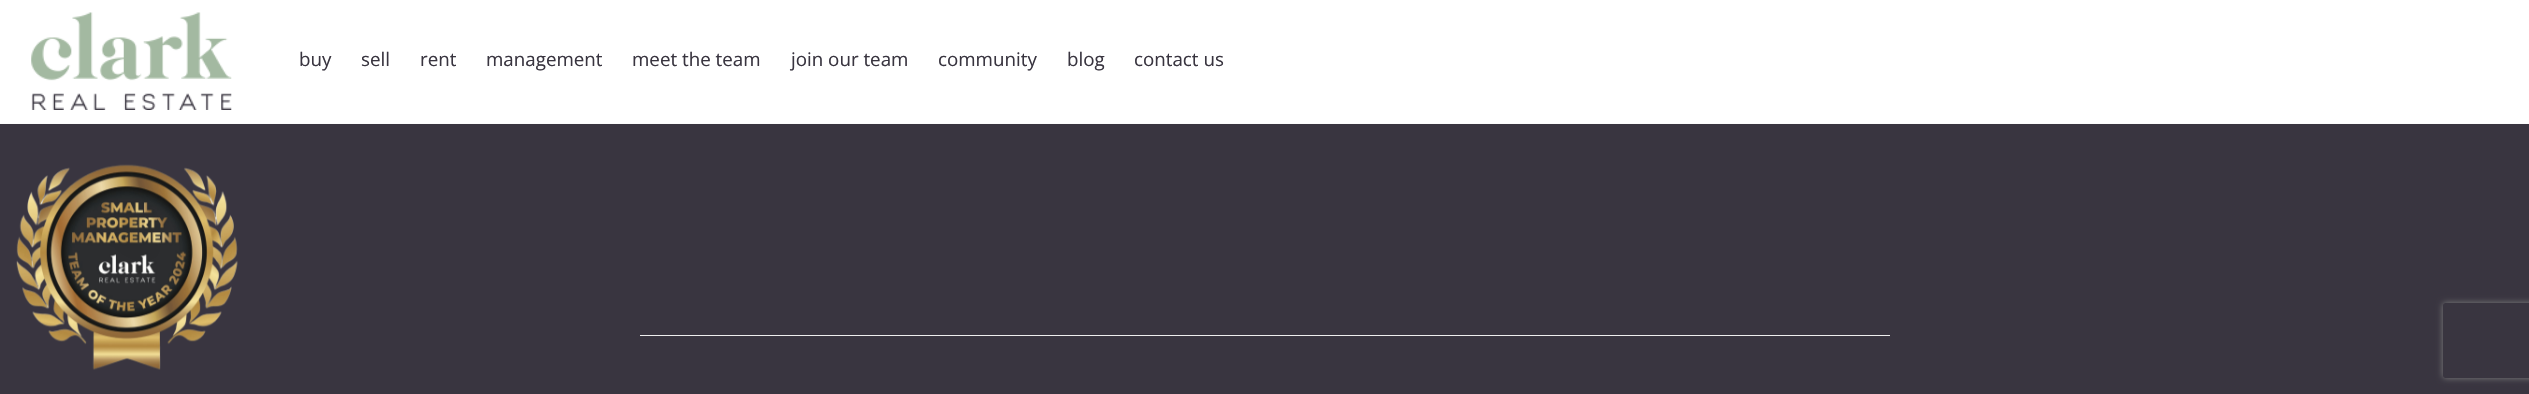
static SkFont makeFont(const char* family, int weight, float size, bool italic = false) {
  SkFontStyle style(weight, SkFontStyle::kNormal_Width,
    italic ? SkFontStyle::kItalic_Slant : SkFontStyle::kUpright_Slant);
  SkFont result(fontMgr->matchFamilyStyle(family, style), size);
  result.setSubpixel(true);
  return result;
}

static void text(SkCanvas* c, const char* s, float x, float y, const SkFont& font, SkColor color) {
  SkPaint ink(SkColor4f::FromColor(color));
  ink.setAntiAlias(true);
  c->drawString(s, x, y, font, ink);
}

static void box(SkCanvas* c, float l, float t, float r, float b, SkColor color) {
  SkPaint ink(SkColor4f::FromColor(color));
  ink.setAntiAlias(true);
  c->drawRect(SkRect::MakeLTRB(l, t, r, b), ink);
}

static void picture(SkCanvas* c, const char* path, float l, float t, float r, float b) {
  auto image = SkImages::DeferredFromEncodedData(SkData::MakeFromFileName(path));
  c->drawImageRect(image, SkRect::MakeLTRB(l, t, r, b), SkSamplingOptions());
}

void draw(SkCanvas* c) {
  SkPaint paint;
  paint.setAntiAlias(true);
  c->clear(0xff393540);
  box(c, 0, 0, 2529, 123, 0xffffffff);
  box(c, 0, 123, 2529, 124, 0xfffcfcfc);
  picture(c, "img_01.png", 31, 12, 232, 110);
  SkFont face1 = makeFont("Open Sans", 400, 18.75f);
  text(c, "buy", 299, 66, face1, 0xff393540);
  text(c, "sell", 361, 66, face1, 0xff393540);
  text(c, "rent", 420, 66, face1, 0xff393540);
  text(c, "management", 486, 66, face1, 0xff393540);
  text(c, "meet the team", 632, 66, face1, 0xff393540);
  text(c, "join our team", 791, 66, face1, 0xff393540);
  text(c, "community", 938, 66, face1, 0xff393540);
  text(c, "blog", 1067, 66, face1, 0xff393540);
  text(c, "contact us", 1134, 66, face1, 0xff393540);
  picture(c, "img_02.png", 16, 164, 238, 370);
  box(c, 640, 335, 1890, 336, 0xffeeeeee);
  c->save();
  c->clipPath(SkPathBuilder(SkPathFillType::kEvenOdd).moveTo(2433, 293).lineTo(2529, 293).lineTo(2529, 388).lineTo(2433, 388).close().moveTo(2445.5f, 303).lineTo(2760.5f, 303).cubicTo(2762, 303, 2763, 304, 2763, 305.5f).lineTo(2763, 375.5f).cubicTo(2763, 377, 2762, 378, 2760.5f, 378).lineTo(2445.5f, 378).cubicTo(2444, 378, 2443, 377, 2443, 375.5f).lineTo(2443, 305.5f).cubicTo(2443, 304, 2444, 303, 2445.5f, 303).close().detach(), true);
  paint.setColor(0xff808080);
  paint.setMaskFilter(SkMaskFilter::MakeBlur(kNormal_SkBlurStyle, 3));
  c->drawRoundRect(SkRect::MakeLTRB(2443, 303, 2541, 378), 2.5f, 2.5f, paint);
  paint.setMaskFilter(nullptr);
  c->restore();
}
